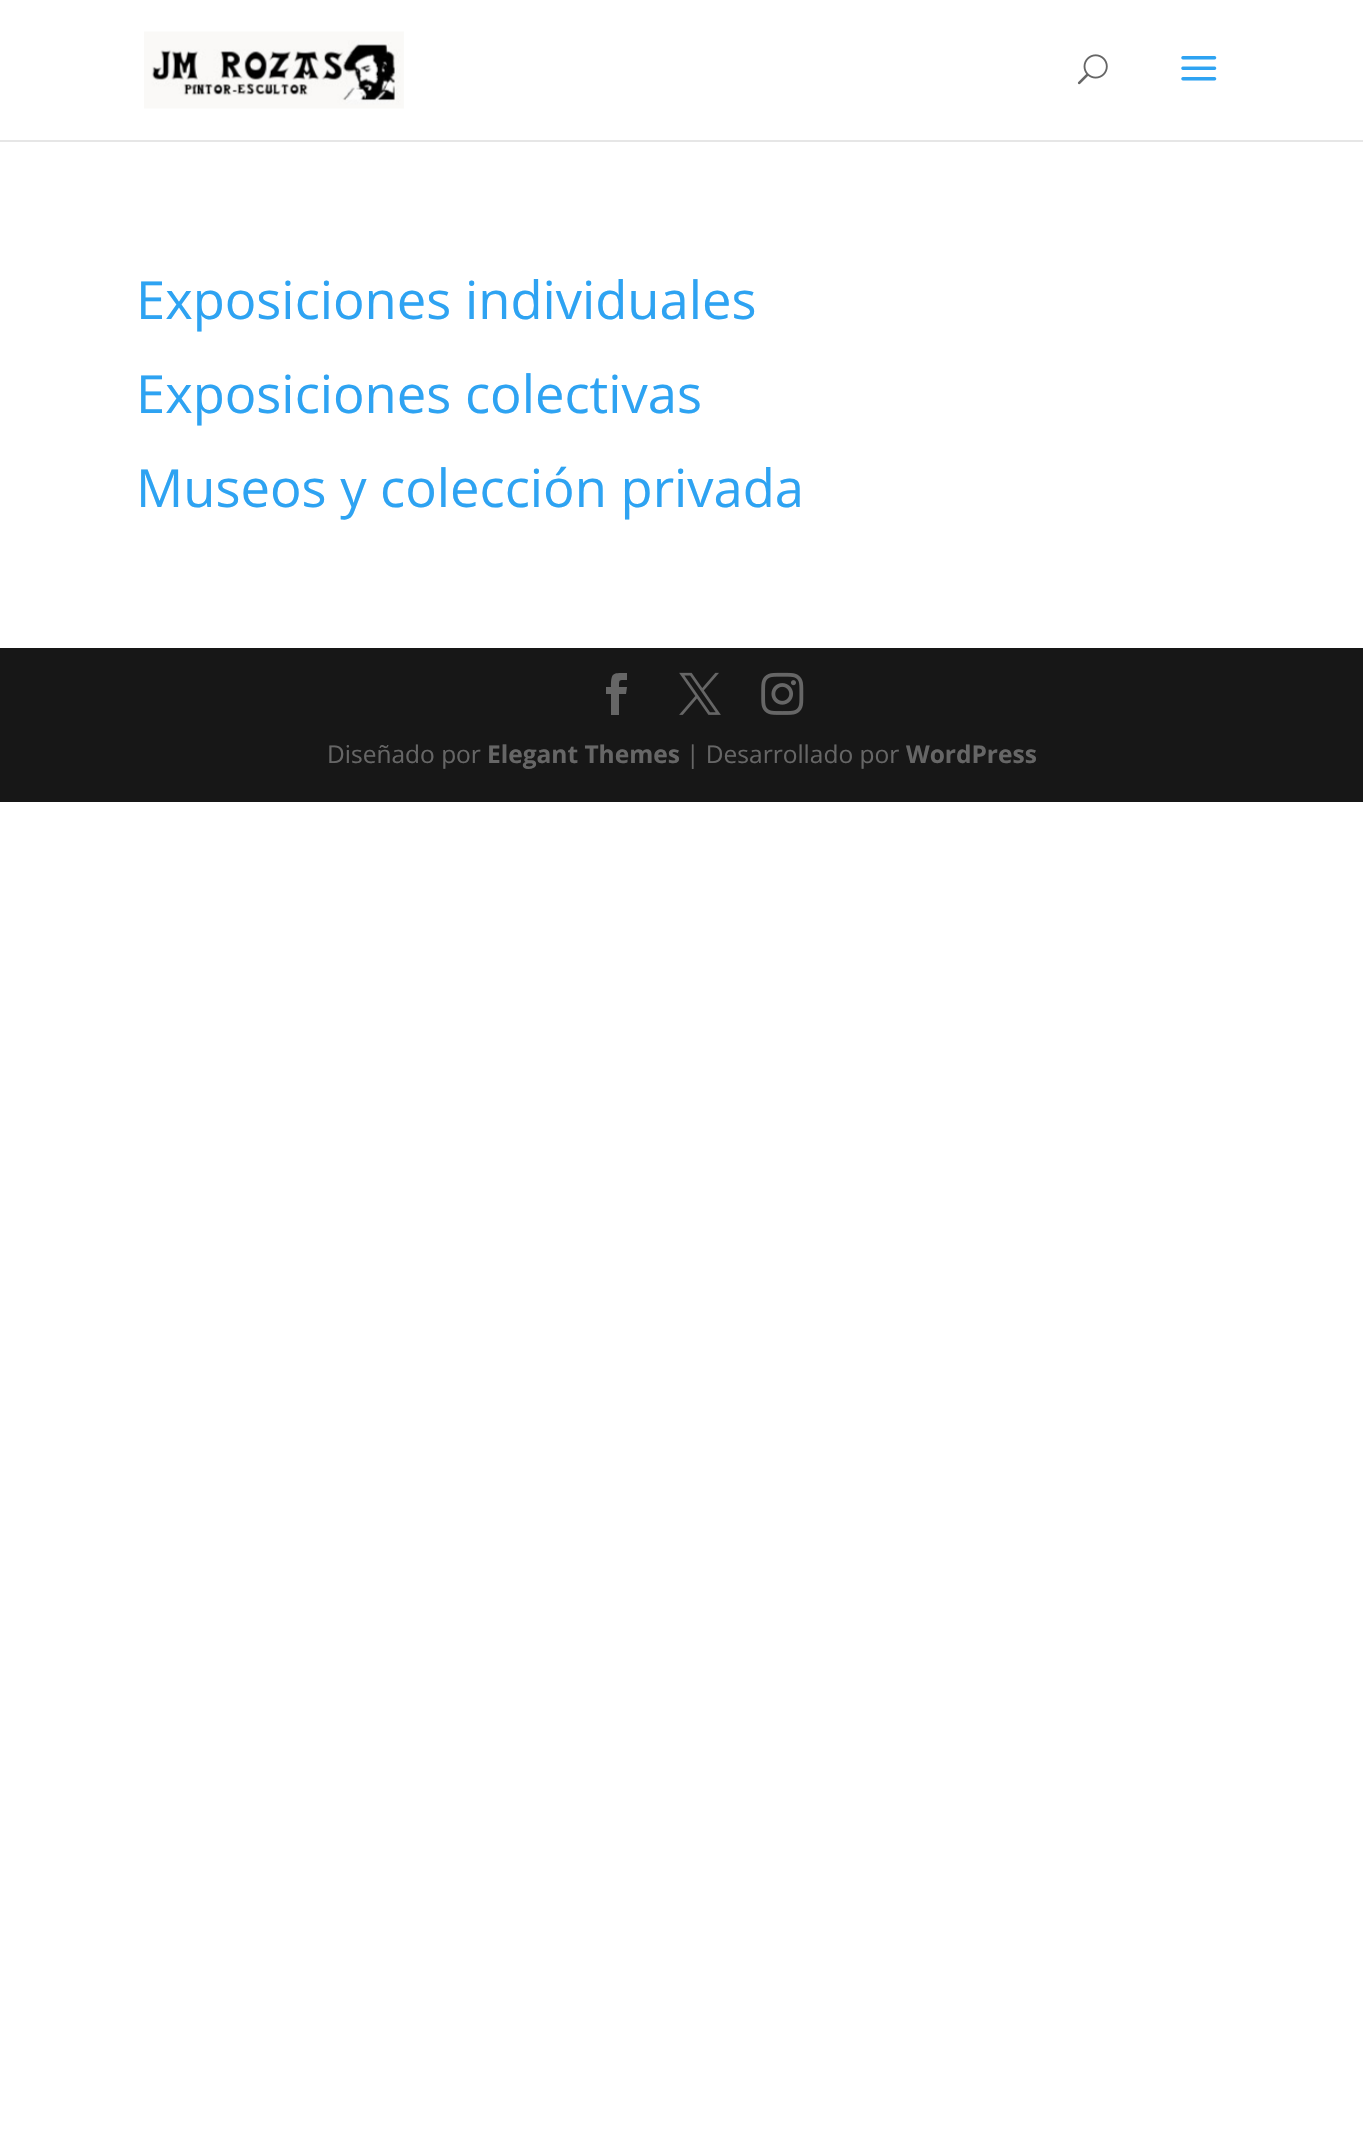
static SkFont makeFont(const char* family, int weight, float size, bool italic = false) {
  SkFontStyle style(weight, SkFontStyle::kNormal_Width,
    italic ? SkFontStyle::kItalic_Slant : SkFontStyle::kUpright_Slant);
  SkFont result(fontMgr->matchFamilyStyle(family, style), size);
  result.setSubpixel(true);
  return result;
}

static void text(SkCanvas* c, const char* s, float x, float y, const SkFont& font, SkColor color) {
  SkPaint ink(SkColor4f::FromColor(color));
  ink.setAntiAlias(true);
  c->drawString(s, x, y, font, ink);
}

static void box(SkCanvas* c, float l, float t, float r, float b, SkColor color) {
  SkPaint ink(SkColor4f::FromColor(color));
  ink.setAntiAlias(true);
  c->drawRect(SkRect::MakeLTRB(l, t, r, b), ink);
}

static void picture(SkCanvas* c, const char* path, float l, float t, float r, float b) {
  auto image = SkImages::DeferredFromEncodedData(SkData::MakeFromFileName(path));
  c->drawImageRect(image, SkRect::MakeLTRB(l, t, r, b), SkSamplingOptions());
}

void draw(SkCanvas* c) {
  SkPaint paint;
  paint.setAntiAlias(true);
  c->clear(0xffffffff);
  box(c, 0, 140, 1363, 142, 0xffe6e6e6);
  picture(c, "img_01.png", 144, 31, 404, 109);
  picture(c, "img_02.png", 1077, 54, 1108, 85);
  picture(c, "img_03.png", 1181, 56, 1217, 81);
  SkFont face1 = makeFont("Open Sans", 400, 52.5f);
  text(c, "Exposiciones individuales", 136, 319, face1, 0xff2ea3f2);
  text(c, "Exposiciones colectivas", 136, 413, face1, 0xff2ea3f2);
  text(c, "Museos y colección privada", 136, 507, face1, 0xff2ea3f2);
  box(c, 0, 648, 1363, 802, 0xff171717);
  paint.setColor(0xff666666);
  c->drawPath(SkPathBuilder().moveTo(611, 715).lineTo(619, 715).lineTo(619, 694).lineTo(626, 694).lineTo(627, 687).lineTo(619, 687).cubicTo(619, 679, 619, 680, 627, 680).lineTo(627, 673).cubicTo(613, 673, 611, 672, 611, 687).lineTo(606, 687).lineTo(606, 694).lineTo(611, 694).close().detach(), paint);
  picture(c, "img_04.png", 679, 672, 721, 715);
  picture(c, "img_05.png", 761, 672, 804, 715);
  SkFont face2 = makeFont("Open Sans", 400, 24.5f);
  text(c, "Diseñado por", 327, 763, face2, 0xff666666);
  SkFont face3 = makeFont("Open Sans", 700, 24.5f);
  text(c, "Elegant Themes", 487, 763, face3, 0xff666666);
  text(c, "| Desarrollado por", 686, 763, face2, 0xff666666);
  text(c, "WordPress", 906, 763, face3, 0xff666666);
}
